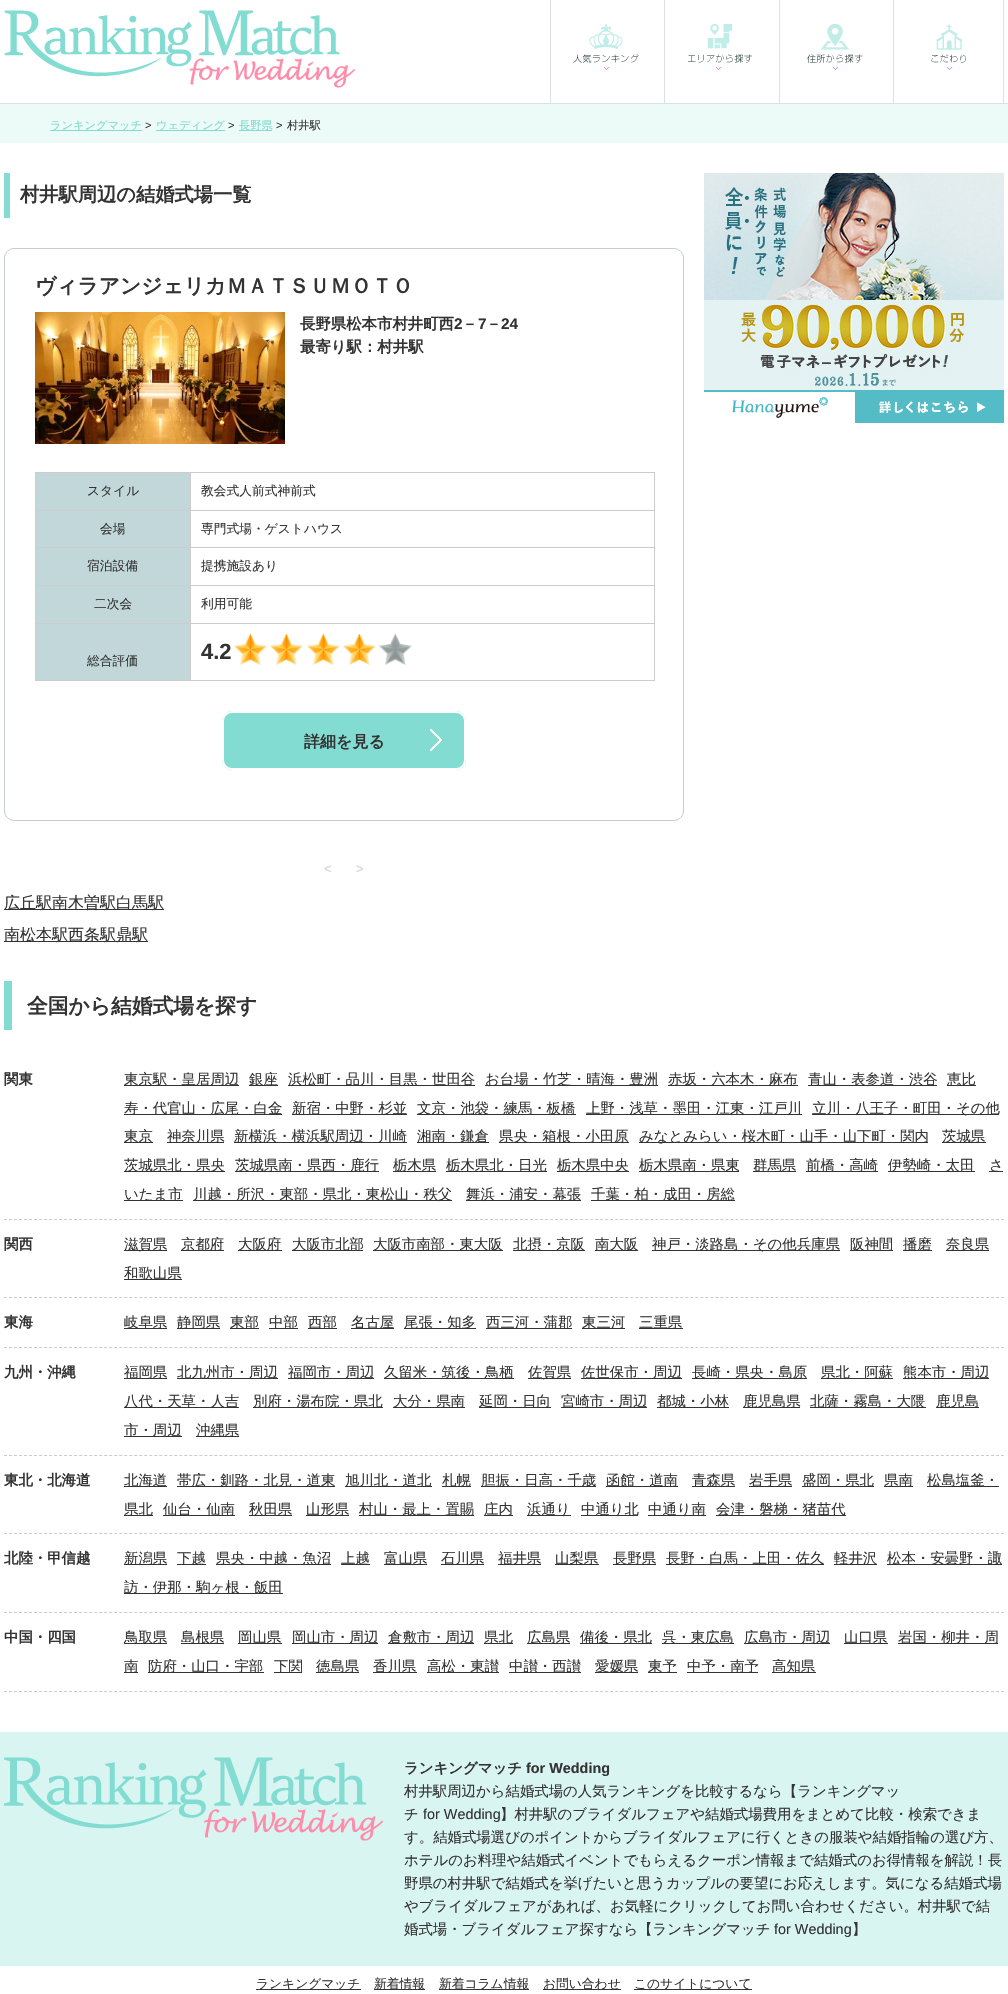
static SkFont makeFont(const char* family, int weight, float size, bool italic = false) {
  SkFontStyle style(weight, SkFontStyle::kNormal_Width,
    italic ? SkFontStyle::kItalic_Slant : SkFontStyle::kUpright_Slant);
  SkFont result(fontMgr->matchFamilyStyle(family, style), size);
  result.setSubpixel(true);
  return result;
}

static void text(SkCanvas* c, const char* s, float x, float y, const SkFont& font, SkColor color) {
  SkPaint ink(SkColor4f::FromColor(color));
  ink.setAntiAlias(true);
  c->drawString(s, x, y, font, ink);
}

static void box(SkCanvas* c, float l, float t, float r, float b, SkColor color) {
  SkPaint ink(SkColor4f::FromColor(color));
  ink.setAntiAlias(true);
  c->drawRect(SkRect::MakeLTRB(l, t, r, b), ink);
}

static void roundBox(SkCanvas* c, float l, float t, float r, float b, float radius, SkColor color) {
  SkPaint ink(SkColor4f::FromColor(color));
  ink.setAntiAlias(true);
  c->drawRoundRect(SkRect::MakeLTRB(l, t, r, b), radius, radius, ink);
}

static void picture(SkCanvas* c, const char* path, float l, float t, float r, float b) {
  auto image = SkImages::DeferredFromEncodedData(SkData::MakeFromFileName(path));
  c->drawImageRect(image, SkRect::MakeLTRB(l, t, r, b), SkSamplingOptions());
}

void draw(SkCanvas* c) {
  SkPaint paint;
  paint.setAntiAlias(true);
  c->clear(0xffffffff);
  box(c, 0, 103, 1008, 104, 0xffdde0e0);
  picture(c, "img_01.png", 4, 10, 355, 88);
  box(c, 1003, 0, 1004, 103, 0xffdde0e0);
  box(c, 550, 0, 551, 103, 0xffdde0e0);
  picture(c, "img_02.png", 573, 24, 639, 70);
  box(c, 664, 0, 665, 103, 0xffdde0e0);
  picture(c, "img_03.png", 688, 24, 752, 70);
  box(c, 779, 0, 780, 103, 0xffdde0e0);
  picture(c, "img_04.png", 807, 24, 863, 70);
  box(c, 893, 0, 894, 103, 0xffdde0e0);
  picture(c, "img_05.png", 931, 24, 966, 70);
  box(c, 0, 104, 1008, 143, 0xffecfaf8);
  box(c, 50, 130, 142, 131, 0xff82dcd2);
  SkFont face1 = makeFont("WenQuanYi Zen Hei", 500, 11.25f);
  text(c, "ランキングマッチ", 50, 129, face1, 0xff82dcd2);
  SkFont face2 = makeFont("Liberation Sans", 400, 11.25f);
  text(c, ">", 145, 129, face2, 0xff333333);
  box(c, 156, 130, 225, 131, 0xff82dcd2);
  text(c, "ウェディング", 156, 129, face1, 0xff82dcd2);
  text(c, ">", 228, 129, face2, 0xff333333);
  box(c, 239, 130, 272, 131, 0xff82dcd2);
  text(c, "長野県", 239, 129, face1, 0xff82dcd2);
  text(c, ">", 276, 129, face2, 0xff333333);
  text(c, "村井駅", 287, 129, face1, 0xff333333);
  box(c, 4, 173, 10, 218, 0xff82dcd2);
  SkFont face3 = makeFont("WenQuanYi Zen Hei", 700, 19.25f);
  text(c, "村井駅周辺の結婚式場一覧", 20, 201, face3, 0xff333333);
  paint.setStyle(SkPaint::kStroke_Style);
  paint.setStrokeWidth(1);
  paint.setColor(0xffc7cccc);
  c->drawRoundRect(SkRect::MakeLTRB(4.5f, 248.5f, 683.5f, 820.5f), 9.5f, 9.5f, paint);
  SkFont face4 = makeFont("WenQuanYi Zen Hei", 700, 20.75f);
  text(c, "ヴィラアンジェリカＭＡＴＳＵＭＯＴＯ", 35, 293, face4, 0xff333333);
  picture(c, "img_06.png", 35, 312, 285, 444);
  SkFont face5 = makeFont("WenQuanYi Zen Hei", 700, 15.4f);
  text(c, "長野県松本市村井町西", 300, 329, face5, 0xff333333);
  SkFont face6 = makeFont("Liberation Sans", 700, 15.4f);
  text(c, "2", 454, 329, face6, 0xff333333);
  text(c, "－", 462, 329, face5, 0xff333333);
  text(c, "7", 478, 329, face6, 0xff333333);
  text(c, "－", 486, 329, face5, 0xff333333);
  text(c, "24", 501, 329, face6, 0xff333333);
  text(c, "最寄り駅：村井駅", 300, 352, face5, 0xff333333);
  box(c, 36, 473, 190, 510, 0xffc2d7da);
  box(c, 190, 472, 655, 473, 0xffcccccc);
  box(c, 190, 510, 655, 511, 0xffcccccc);
  box(c, 190, 547, 655, 548, 0xffcccccc);
  box(c, 190, 585, 655, 586, 0xffcccccc);
  box(c, 190, 623, 655, 624, 0xffcccccc);
  box(c, 654, 623, 655, 681, 0xffcccccc);
  box(c, 190, 680, 655, 681, 0xffcccccc);
  box(c, 190, 623, 191, 681, 0xffcccccc);
  box(c, 35, 623, 191, 624, 0xffcccccc);
  box(c, 190, 585, 191, 624, 0xffcccccc);
  box(c, 35, 585, 191, 586, 0xffcccccc);
  box(c, 190, 547, 191, 586, 0xffcccccc);
  box(c, 35, 547, 191, 548, 0xffcccccc);
  box(c, 190, 510, 191, 548, 0xffcccccc);
  box(c, 35, 510, 191, 511, 0xffcccccc);
  box(c, 190, 472, 191, 511, 0xffcccccc);
  box(c, 35, 472, 191, 473, 0xffcccccc);
  box(c, 35, 680, 191, 681, 0xffcccccc);
  box(c, 35, 623, 36, 681, 0xffcccccc);
  box(c, 35, 585, 36, 624, 0xffcccccc);
  box(c, 35, 547, 36, 586, 0xffcccccc);
  box(c, 35, 510, 36, 548, 0xffcccccc);
  box(c, 35, 472, 36, 511, 0xffcccccc);
  SkFont face7 = makeFont("WenQuanYi Zen Hei", 500, 12.75f);
  text(c, "スタイル", 87, 495, face7, 0xff333333);
  box(c, 654, 585, 655, 624, 0xffcccccc);
  box(c, 654, 547, 655, 586, 0xffcccccc);
  box(c, 654, 510, 655, 548, 0xffcccccc);
  box(c, 654, 472, 655, 511, 0xffcccccc);
  text(c, "教会式人前式神前式", 201, 495, face7, 0xff333333);
  box(c, 36, 511, 190, 547, 0xffc2d7da);
  text(c, "会場", 100, 533, face7, 0xff333333);
  text(c, "専門式場・ゲストハウス", 201, 533, face7, 0xff333333);
  box(c, 36, 548, 190, 585, 0xffc2d7da);
  text(c, "宿泊設備", 87, 570, face7, 0xff333333);
  text(c, "提携施設あり", 201, 570, face7, 0xff333333);
  box(c, 36, 586, 190, 623, 0xffc2d7da);
  text(c, "二次会", 94, 608, face7, 0xff333333);
  text(c, "利用可能", 201, 608, face7, 0xff333333);
  SkFont face8 = makeFont("Liberation Sans", 700, 22);
  text(c, "4.2", 201, 659, face8, 0xff333333);
  picture(c, "img_07.png", 234, 634, 267, 665);
  picture(c, "img_07.png", 270, 634, 303, 665);
  picture(c, "img_08.png", 307, 634, 340, 665);
  picture(c, "img_08.png", 343, 634, 376, 665);
  picture(c, "img_09.png", 379, 634, 412, 665);
  box(c, 36, 624, 190, 680, 0xffc2d7da);
  text(c, "総合評価", 87, 665, face7, 0xff333333);
  roundBox(c, 222, 711, 466, 770, 10, 0xff82dcd2);
  picture(c, "img_10.png", 430, 729, 442, 751);
  paint.setStrokeWidth(2);
  paint.setColor(0xffffffff);
  c->drawRoundRect(SkRect::MakeLTRB(223, 712, 465, 769), 9, 9, paint);
  SkFont face9 = makeFont("WenQuanYi Zen Hei", 700, 16);
  text(c, "詳細を見る", 304, 747, face9, 0xff333333);
  SkFont face10 = makeFont("Liberation Sans", 700, 12.75f);
  text(c, "<", 324, 873, face10, 0xffdcdcdc);
  text(c, ">", 356, 873, face10, 0xffdcdcdc);
  box(c, 4, 909, 164, 910, 0xff333333);
  SkFont face11 = makeFont("WenQuanYi Zen Hei", 500, 16);
  text(c, "広丘駅南木曽駅白馬駅", 4, 908, face11, 0xff333333);
  box(c, 4, 941, 148, 942, 0xff333333);
  text(c, "南松本駅西条駅鼎駅", 4, 940, face11, 0xff333333);
  picture(c, "img_11.png", 704, 173, 1004, 423);
  box(c, 4, 981, 12, 1030, 0xff82dcd2);
  text(c, "全国から結婚式場を探す", 27, 1013, face4, 0xff333333);
  SkFont face12 = makeFont("WenQuanYi Zen Hei", 700, 14.4f);
  text(c, "関東", 4, 1084, face12, 0xff333333);
  paint.setStrokeWidth(1);
  paint.setColor(0xffc7cccc);
  paint.setPathEffect(SkDashPathEffect::Make({{3, 2.01f}}, 0));
  c->drawPath(SkPathBuilder().moveTo(4, 1219.5f).lineTo(1004, 1219.5f).detach(), paint);
  paint.setPathEffect(nullptr);
  box(c, 124, 1085, 239, 1086, 0xff333333);
  SkFont face13 = makeFont("WenQuanYi Zen Hei", 500, 14.4f);
  text(c, "東京駅・皇居周辺", 124, 1084, face13, 0xff333333);
  box(c, 249, 1085, 278, 1086, 0xff333333);
  text(c, "銀座", 249, 1084, face13, 0xff333333);
  box(c, 288, 1085, 475, 1086, 0xff333333);
  text(c, "浜松町・品川・目黒・世田谷", 288, 1084, face13, 0xff333333);
  box(c, 485, 1085, 658, 1086, 0xff333333);
  text(c, "お台場・竹芝・晴海・豊洲", 485, 1084, face13, 0xff333333);
  box(c, 668, 1085, 798, 1086, 0xff333333);
  text(c, "赤坂・六本木・麻布", 668, 1084, face13, 0xff333333);
  box(c, 808, 1085, 937, 1086, 0xff333333);
  text(c, "青山・表参道・渋谷", 808, 1084, face13, 0xff333333);
  box(c, 947, 1085, 976, 1086, 0xff333333);
  text(c, "恵比", 947, 1084, face13, 0xff333333);
  box(c, 124, 1114, 282, 1115, 0xff333333);
  text(c, "寿・代官山・広尾・白金", 124, 1113, face13, 0xff333333);
  box(c, 292, 1114, 407, 1115, 0xff333333);
  text(c, "新宿・中野・杉並", 292, 1113, face13, 0xff333333);
  box(c, 417, 1114, 576, 1115, 0xff333333);
  text(c, "文京・池袋・練馬・板橋", 417, 1113, face13, 0xff333333);
  box(c, 586, 1114, 802, 1115, 0xff333333);
  text(c, "上野・浅草・墨田・江東・江戸川", 586, 1113, face13, 0xff333333);
  box(c, 812, 1114, 999, 1115, 0xff333333);
  text(c, "立川・八王子・町田・その他", 812, 1113, face13, 0xff333333);
  box(c, 124, 1142, 153, 1143, 0xff333333);
  text(c, "東京", 124, 1141, face13, 0xff333333);
  box(c, 167, 1142, 224, 1143, 0xff333333);
  text(c, "神奈川県", 167, 1141, face13, 0xff333333);
  box(c, 234, 1142, 407, 1143, 0xff333333);
  text(c, "新横浜・横浜駅周辺・川崎", 234, 1141, face13, 0xff333333);
  box(c, 417, 1142, 489, 1143, 0xff333333);
  text(c, "湘南・鎌倉", 417, 1141, face13, 0xff333333);
  box(c, 499, 1142, 629, 1143, 0xff333333);
  text(c, "県央・箱根・小田原", 499, 1141, face13, 0xff333333);
  box(c, 639, 1142, 928, 1143, 0xff333333);
  text(c, "みなとみらい・桜木町・山手・山下町・関内", 639, 1141, face13, 0xff333333);
  box(c, 942, 1142, 986, 1143, 0xff333333);
  text(c, "茨城県", 942, 1141, face13, 0xff333333);
  box(c, 124, 1171, 225, 1172, 0xff333333);
  text(c, "茨城県北・県央", 124, 1170, face13, 0xff333333);
  box(c, 235, 1171, 379, 1172, 0xff333333);
  text(c, "茨城県南・県西・鹿行", 235, 1170, face13, 0xff333333);
  box(c, 393, 1171, 436, 1172, 0xff333333);
  text(c, "栃木県", 393, 1170, face13, 0xff333333);
  box(c, 446, 1171, 547, 1172, 0xff333333);
  text(c, "栃木県北・日光", 446, 1170, face13, 0xff333333);
  box(c, 557, 1171, 629, 1172, 0xff333333);
  text(c, "栃木県中央", 557, 1170, face13, 0xff333333);
  box(c, 639, 1171, 739, 1172, 0xff333333);
  text(c, "栃木県南・県東", 639, 1170, face13, 0xff333333);
  box(c, 753, 1171, 796, 1172, 0xff333333);
  text(c, "群馬県", 753, 1170, face13, 0xff333333);
  box(c, 806, 1171, 878, 1172, 0xff333333);
  text(c, "前橋・高崎", 806, 1170, face13, 0xff333333);
  box(c, 888, 1171, 975, 1172, 0xff333333);
  text(c, "伊勢崎・太田", 888, 1170, face13, 0xff333333);
  box(c, 989, 1171, 1003, 1172, 0xff333333);
  text(c, "さ", 989, 1170, face13, 0xff333333);
  box(c, 124, 1200, 183, 1201, 0xff333333);
  text(c, "いたま市", 124, 1199, face13, 0xff333333);
  box(c, 193, 1200, 452, 1201, 0xff333333);
  text(c, "川越・所沢・東部・県北・東松山・秩父", 193, 1199, face13, 0xff333333);
  box(c, 466, 1200, 581, 1201, 0xff333333);
  text(c, "舞浜・浦安・幕張", 466, 1199, face13, 0xff333333);
  box(c, 591, 1200, 735, 1201, 0xff333333);
  text(c, "千葉・柏・成田・房総", 591, 1199, face13, 0xff333333);
  text(c, "関西", 4, 1249, face12, 0xff333333);
  paint.setPathEffect(SkDashPathEffect::Make({{3, 2.01f}}, 0));
  c->drawPath(SkPathBuilder().moveTo(4, 1297.5f).lineTo(1004, 1297.5f).detach(), paint);
  paint.setPathEffect(nullptr);
  box(c, 124, 1250, 167, 1251, 0xff333333);
  text(c, "滋賀県", 124, 1249, face13, 0xff333333);
  box(c, 181, 1250, 224, 1251, 0xff333333);
  text(c, "京都府", 181, 1249, face13, 0xff333333);
  box(c, 238, 1250, 282, 1251, 0xff333333);
  text(c, "大阪府", 238, 1249, face13, 0xff333333);
  box(c, 292, 1250, 363, 1251, 0xff333333);
  text(c, "大阪市北部", 292, 1249, face13, 0xff333333);
  box(c, 373, 1250, 503, 1251, 0xff333333);
  text(c, "大阪市南部・東大阪", 373, 1249, face13, 0xff333333);
  box(c, 513, 1250, 585, 1251, 0xff333333);
  text(c, "北摂・京阪", 513, 1249, face13, 0xff333333);
  box(c, 595, 1250, 638, 1251, 0xff333333);
  text(c, "南大阪", 595, 1249, face13, 0xff333333);
  box(c, 652, 1250, 840, 1251, 0xff333333);
  text(c, "神戸・淡路島・その他兵庫県", 652, 1249, face13, 0xff333333);
  box(c, 850, 1250, 893, 1251, 0xff333333);
  text(c, "阪神間", 850, 1249, face13, 0xff333333);
  box(c, 903, 1250, 932, 1251, 0xff333333);
  text(c, "播磨", 903, 1249, face13, 0xff333333);
  box(c, 946, 1250, 989, 1251, 0xff333333);
  text(c, "奈良県", 946, 1249, face13, 0xff333333);
  box(c, 124, 1279, 182, 1280, 0xff333333);
  text(c, "和歌山県", 124, 1278, face13, 0xff333333);
  text(c, "東海", 4, 1327, face12, 0xff333333);
  paint.setPathEffect(SkDashPathEffect::Make({{3, 2.01f}}, 0));
  c->drawPath(SkPathBuilder().moveTo(4, 1347.5f).lineTo(1004, 1347.5f).detach(), paint);
  paint.setPathEffect(nullptr);
  box(c, 124, 1328, 167, 1329, 0xff333333);
  text(c, "岐阜県", 124, 1327, face13, 0xff333333);
  box(c, 177, 1328, 220, 1329, 0xff333333);
  text(c, "静岡県", 177, 1327, face13, 0xff333333);
  box(c, 230, 1328, 259, 1329, 0xff333333);
  text(c, "東部", 230, 1327, face13, 0xff333333);
  box(c, 269, 1328, 298, 1329, 0xff333333);
  text(c, "中部", 269, 1327, face13, 0xff333333);
  box(c, 308, 1328, 337, 1329, 0xff333333);
  text(c, "西部", 308, 1327, face13, 0xff333333);
  box(c, 351, 1328, 394, 1329, 0xff333333);
  text(c, "名古屋", 351, 1327, face13, 0xff333333);
  box(c, 404, 1328, 476, 1329, 0xff333333);
  text(c, "尾張・知多", 404, 1327, face13, 0xff333333);
  box(c, 486, 1328, 572, 1329, 0xff333333);
  text(c, "西三河・蒲郡", 486, 1327, face13, 0xff333333);
  box(c, 582, 1328, 625, 1329, 0xff333333);
  text(c, "東三河", 582, 1327, face13, 0xff333333);
  box(c, 639, 1328, 683, 1329, 0xff333333);
  text(c, "三重県", 639, 1327, face13, 0xff333333);
  text(c, "九州・沖縄", 4, 1377, face12, 0xff333333);
  paint.setPathEffect(SkDashPathEffect::Make({{3, 2.01f}}, 0));
  c->drawPath(SkPathBuilder().moveTo(4, 1455.5f).lineTo(1004, 1455.5f).detach(), paint);
  paint.setPathEffect(nullptr);
  box(c, 124, 1378, 167, 1379, 0xff333333);
  text(c, "福岡県", 124, 1377, face13, 0xff333333);
  box(c, 177, 1378, 278, 1379, 0xff333333);
  text(c, "北九州市・周辺", 177, 1377, face13, 0xff333333);
  box(c, 288, 1378, 374, 1379, 0xff333333);
  text(c, "福岡市・周辺", 288, 1377, face13, 0xff333333);
  box(c, 384, 1378, 514, 1379, 0xff333333);
  text(c, "久留米・筑後・鳥栖", 384, 1377, face13, 0xff333333);
  box(c, 528, 1378, 571, 1379, 0xff333333);
  text(c, "佐賀県", 528, 1377, face13, 0xff333333);
  box(c, 581, 1378, 682, 1379, 0xff333333);
  text(c, "佐世保市・周辺", 581, 1377, face13, 0xff333333);
  box(c, 692, 1378, 807, 1379, 0xff333333);
  text(c, "長崎・県央・島原", 692, 1377, face13, 0xff333333);
  box(c, 821, 1378, 893, 1379, 0xff333333);
  text(c, "県北・阿蘇", 821, 1377, face13, 0xff333333);
  box(c, 903, 1378, 989, 1379, 0xff333333);
  text(c, "熊本市・周辺", 903, 1377, face13, 0xff333333);
  box(c, 124, 1407, 239, 1408, 0xff333333);
  text(c, "八代・天草・人吉", 124, 1406, face13, 0xff333333);
  box(c, 253, 1407, 383, 1408, 0xff333333);
  text(c, "別府・湯布院・県北", 253, 1406, face13, 0xff333333);
  box(c, 393, 1407, 465, 1408, 0xff333333);
  text(c, "大分・県南", 393, 1406, face13, 0xff333333);
  box(c, 479, 1407, 551, 1408, 0xff333333);
  text(c, "延岡・日向", 479, 1406, face13, 0xff333333);
  box(c, 561, 1407, 647, 1408, 0xff333333);
  text(c, "宮崎市・周辺", 561, 1406, face13, 0xff333333);
  box(c, 657, 1407, 729, 1408, 0xff333333);
  text(c, "都城・小林", 657, 1406, face13, 0xff333333);
  box(c, 743, 1407, 800, 1408, 0xff333333);
  text(c, "鹿児島県", 743, 1406, face13, 0xff333333);
  box(c, 810, 1407, 926, 1408, 0xff333333);
  text(c, "北薩・霧島・大隈", 810, 1406, face13, 0xff333333);
  box(c, 936, 1407, 979, 1408, 0xff333333);
  text(c, "鹿児島", 936, 1406, face13, 0xff333333);
  box(c, 124, 1436, 182, 1437, 0xff333333);
  text(c, "市・周辺", 124, 1435, face13, 0xff333333);
  box(c, 196, 1436, 239, 1437, 0xff333333);
  text(c, "沖縄県", 196, 1435, face13, 0xff333333);
  text(c, "東北・北海道", 4, 1485, face12, 0xff333333);
  paint.setPathEffect(SkDashPathEffect::Make({{3, 2.01f}}, 0));
  c->drawPath(SkPathBuilder().moveTo(4, 1533.5f).lineTo(1004, 1533.5f).detach(), paint);
  paint.setPathEffect(nullptr);
  box(c, 124, 1486, 167, 1487, 0xff333333);
  text(c, "北海道", 124, 1485, face13, 0xff333333);
  box(c, 177, 1486, 335, 1487, 0xff333333);
  text(c, "帯広・釧路・北見・道東", 177, 1485, face13, 0xff333333);
  box(c, 345, 1486, 432, 1487, 0xff333333);
  text(c, "旭川北・道北", 345, 1485, face13, 0xff333333);
  box(c, 442, 1486, 471, 1487, 0xff333333);
  text(c, "札幌", 442, 1485, face13, 0xff333333);
  box(c, 481, 1486, 596, 1487, 0xff333333);
  text(c, "胆振・日高・千歳", 481, 1485, face13, 0xff333333);
  box(c, 606, 1486, 678, 1487, 0xff333333);
  text(c, "函館・道南", 606, 1485, face13, 0xff333333);
  box(c, 692, 1486, 735, 1487, 0xff333333);
  text(c, "青森県", 692, 1485, face13, 0xff333333);
  box(c, 749, 1486, 792, 1487, 0xff333333);
  text(c, "岩手県", 749, 1485, face13, 0xff333333);
  box(c, 802, 1486, 874, 1487, 0xff333333);
  text(c, "盛岡・県北", 802, 1485, face13, 0xff333333);
  box(c, 884, 1486, 913, 1487, 0xff333333);
  text(c, "県南", 884, 1485, face13, 0xff333333);
  box(c, 927, 1486, 999, 1487, 0xff333333);
  text(c, "松島塩釜・", 927, 1485, face13, 0xff333333);
  box(c, 124, 1515, 153, 1516, 0xff333333);
  text(c, "県北", 124, 1514, face13, 0xff333333);
  box(c, 163, 1515, 235, 1516, 0xff333333);
  text(c, "仙台・仙南", 163, 1514, face13, 0xff333333);
  box(c, 249, 1515, 292, 1516, 0xff333333);
  text(c, "秋田県", 249, 1514, face13, 0xff333333);
  box(c, 306, 1515, 349, 1516, 0xff333333);
  text(c, "山形県", 306, 1514, face13, 0xff333333);
  box(c, 359, 1515, 474, 1516, 0xff333333);
  text(c, "村山・最上・置賜", 359, 1514, face13, 0xff333333);
  box(c, 484, 1515, 513, 1516, 0xff333333);
  text(c, "庄内", 484, 1514, face13, 0xff333333);
  box(c, 527, 1515, 571, 1516, 0xff333333);
  text(c, "浜通り", 527, 1514, face13, 0xff333333);
  box(c, 581, 1515, 638, 1516, 0xff333333);
  text(c, "中通り北", 581, 1514, face13, 0xff333333);
  box(c, 648, 1515, 706, 1516, 0xff333333);
  text(c, "中通り南", 648, 1514, face13, 0xff333333);
  box(c, 716, 1515, 846, 1516, 0xff333333);
  text(c, "会津・磐梯・猪苗代", 716, 1514, face13, 0xff333333);
  text(c, "北陸・甲信越", 4, 1563, face12, 0xff333333);
  paint.setPathEffect(SkDashPathEffect::Make({{3, 2.01f}}, 0));
  c->drawPath(SkPathBuilder().moveTo(4, 1612.5f).lineTo(1004, 1612.5f).detach(), paint);
  paint.setPathEffect(nullptr);
  box(c, 124, 1564, 167, 1565, 0xff333333);
  text(c, "新潟県", 124, 1563, face13, 0xff333333);
  box(c, 177, 1564, 206, 1565, 0xff333333);
  text(c, "下越", 177, 1563, face13, 0xff333333);
  box(c, 216, 1564, 331, 1565, 0xff333333);
  text(c, "県央・中越・魚沼", 216, 1563, face13, 0xff333333);
  box(c, 341, 1564, 370, 1565, 0xff333333);
  text(c, "上越", 341, 1563, face13, 0xff333333);
  box(c, 384, 1564, 427, 1565, 0xff333333);
  text(c, "富山県", 384, 1563, face13, 0xff333333);
  box(c, 441, 1564, 484, 1565, 0xff333333);
  text(c, "石川県", 441, 1563, face13, 0xff333333);
  box(c, 498, 1564, 541, 1565, 0xff333333);
  text(c, "福井県", 498, 1563, face13, 0xff333333);
  box(c, 555, 1564, 599, 1565, 0xff333333);
  text(c, "山梨県", 555, 1563, face13, 0xff333333);
  box(c, 613, 1564, 656, 1565, 0xff333333);
  text(c, "長野県", 613, 1563, face13, 0xff333333);
  box(c, 666, 1564, 824, 1565, 0xff333333);
  text(c, "長野・白馬・上田・佐久", 666, 1563, face13, 0xff333333);
  box(c, 834, 1564, 877, 1565, 0xff333333);
  text(c, "軽井沢", 834, 1563, face13, 0xff333333);
  box(c, 887, 1564, 1002, 1565, 0xff333333);
  text(c, "松本・安曇野・諏", 887, 1563, face13, 0xff333333);
  box(c, 124, 1593, 283, 1594, 0xff333333);
  text(c, "訪・伊那・駒ヶ根・飯田", 124, 1592, face13, 0xff333333);
  text(c, "中国・四国", 4, 1642, face12, 0xff333333);
  paint.setPathEffect(SkDashPathEffect::Make({{3, 2.01f}}, 0));
  c->drawPath(SkPathBuilder().moveTo(4, 1691.5f).lineTo(1004, 1691.5f).detach(), paint);
  paint.setPathEffect(nullptr);
  box(c, 124, 1643, 167, 1644, 0xff333333);
  text(c, "鳥取県", 124, 1642, face13, 0xff333333);
  box(c, 181, 1643, 224, 1644, 0xff333333);
  text(c, "島根県", 181, 1642, face13, 0xff333333);
  box(c, 238, 1643, 282, 1644, 0xff333333);
  text(c, "岡山県", 238, 1642, face13, 0xff333333);
  box(c, 292, 1643, 378, 1644, 0xff333333);
  text(c, "岡山市・周辺", 292, 1642, face13, 0xff333333);
  box(c, 388, 1643, 474, 1644, 0xff333333);
  text(c, "倉敷市・周辺", 388, 1642, face13, 0xff333333);
  box(c, 484, 1643, 513, 1644, 0xff333333);
  text(c, "県北", 484, 1642, face13, 0xff333333);
  box(c, 527, 1643, 570, 1644, 0xff333333);
  text(c, "広島県", 527, 1642, face13, 0xff333333);
  box(c, 580, 1643, 652, 1644, 0xff333333);
  text(c, "備後・県北", 580, 1642, face13, 0xff333333);
  box(c, 662, 1643, 734, 1644, 0xff333333);
  text(c, "呉・東広島", 662, 1642, face13, 0xff333333);
  box(c, 744, 1643, 830, 1644, 0xff333333);
  text(c, "広島市・周辺", 744, 1642, face13, 0xff333333);
  box(c, 844, 1643, 888, 1644, 0xff333333);
  text(c, "山口県", 844, 1642, face13, 0xff333333);
  box(c, 898, 1643, 998, 1644, 0xff333333);
  text(c, "岩国・柳井・周", 898, 1642, face13, 0xff333333);
  box(c, 124, 1672, 138, 1673, 0xff333333);
  text(c, "南", 124, 1671, face13, 0xff333333);
  box(c, 148, 1672, 264, 1673, 0xff333333);
  text(c, "防府・山口・宇部", 148, 1671, face13, 0xff333333);
  box(c, 274, 1672, 302, 1673, 0xff333333);
  text(c, "下関", 274, 1671, face13, 0xff333333);
  box(c, 316, 1672, 359, 1673, 0xff333333);
  text(c, "徳島県", 316, 1671, face13, 0xff333333);
  box(c, 373, 1672, 417, 1673, 0xff333333);
  text(c, "香川県", 373, 1671, face13, 0xff333333);
  box(c, 427, 1672, 499, 1673, 0xff333333);
  text(c, "高松・東讃", 427, 1671, face13, 0xff333333);
  box(c, 509, 1672, 581, 1673, 0xff333333);
  text(c, "中讃・西讃", 509, 1671, face13, 0xff333333);
  box(c, 595, 1672, 638, 1673, 0xff333333);
  text(c, "愛媛県", 595, 1671, face13, 0xff333333);
  box(c, 648, 1672, 677, 1673, 0xff333333);
  text(c, "東予", 648, 1671, face13, 0xff333333);
  box(c, 687, 1672, 758, 1673, 0xff333333);
  text(c, "中予・南予", 687, 1671, face13, 0xff333333);
  box(c, 772, 1672, 816, 1673, 0xff333333);
  text(c, "高知県", 772, 1671, face13, 0xff333333);
  box(c, 0, 1732, 1008, 1966, 0xffd9f5f1);
  picture(c, "img_12.png", 4, 1757, 383, 1841);
  text(c, "ランキングマッチ", 404, 1773, face12, 0xff333333);
  SkFont face14 = makeFont("Liberation Sans", 700, 14.4f);
  text(c, "for Wedding", 526, 1773, face14, 0xff333333);
  text(c, "村井駅周辺から結婚式場の人気ランキングを比較するなら【ランキングマッ", 404, 1796, face13, 0xff333333);
  text(c, "チ", 404, 1819, face13, 0xff333333);
  SkFont face15 = makeFont("Liberation Sans", 400, 14.4f);
  text(c, "for Wedding", 423, 1819, face15, 0xff333333);
  text(c, "】村井駅のブライダルフェアや結婚式場費用をまとめて比較・検索できま", 500, 1819, face13, 0xff333333);
  text(c, "す。結婚式場選びのポイントからブライダルフェアに行くときの服装や結婚指輪の選び方、", 404, 1842, face13, 0xff333333);
  text(c, "ホテルのお料理や結婚式イベントでもらえるクーポン情報まで結婚式のお得情報を解説！長", 404, 1865, face13, 0xff333333);
  text(c, "野県の村井駅で結婚式を挙げたいと思うカップルの要望にお応えします。気になる結婚式場", 404, 1888, face13, 0xff333333);
  text(c, "やブライダルフェアがあれば、お気軽にクリックしてお問い合わせください。村井駅で結", 404, 1911, face13, 0xff333333);
  text(c, "婚式場・ブライダルフェア探すなら【ランキングマッチ", 404, 1934, face13, 0xff333333);
  text(c, "for Wedding", 774, 1934, face15, 0xff333333);
  text(c, "】", 852, 1934, face13, 0xff333333);
  box(c, 256, 1989, 361, 1990, 0xff333333);
  text(c, "ランキングマッチ", 256, 1988, face7, 0xff333333);
  box(c, 374, 1989, 425, 1990, 0xff333333);
  text(c, "新着情報", 374, 1988, face7, 0xff333333);
  box(c, 439, 1989, 529, 1990, 0xff333333);
  text(c, "新着コラム情報", 439, 1988, face7, 0xff333333);
  box(c, 543, 1989, 621, 1990, 0xff333333);
  text(c, "お問い合わせ", 543, 1988, face7, 0xff333333);
  box(c, 634, 1989, 752, 1990, 0xff333333);
  text(c, "このサイトについて", 634, 1988, face7, 0xff333333);
}
